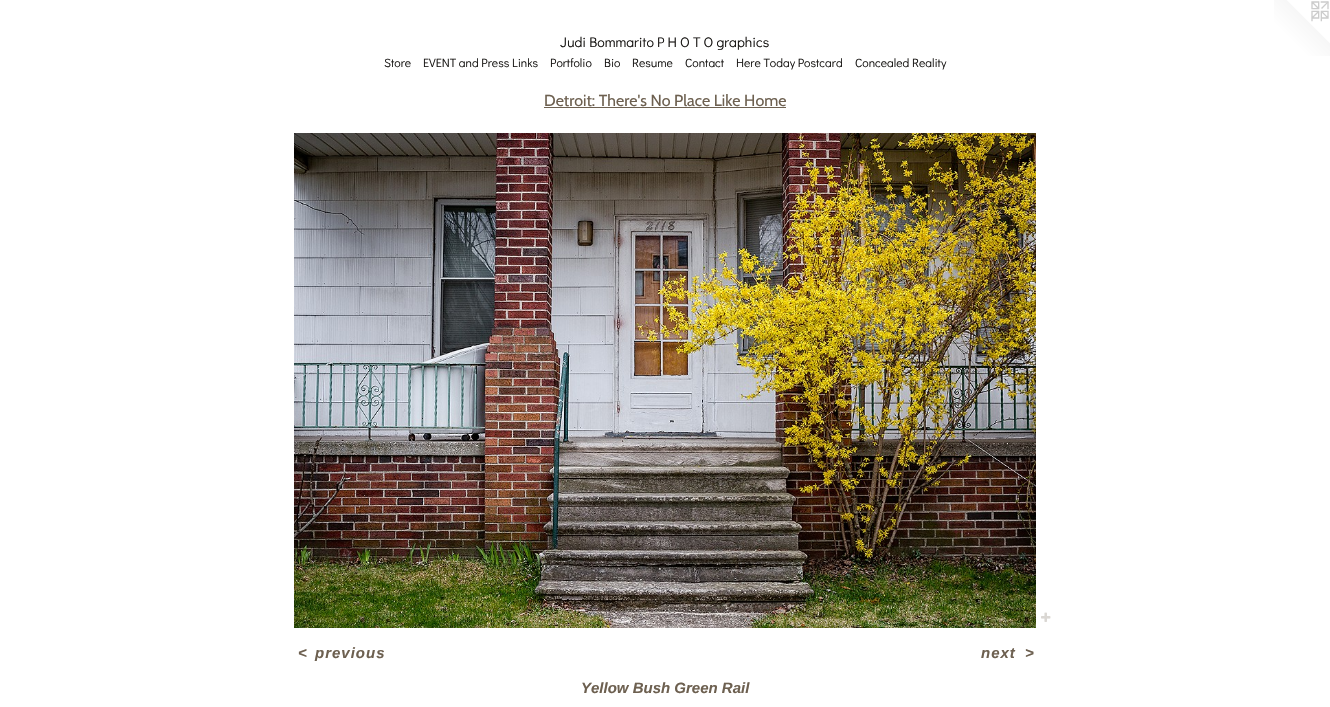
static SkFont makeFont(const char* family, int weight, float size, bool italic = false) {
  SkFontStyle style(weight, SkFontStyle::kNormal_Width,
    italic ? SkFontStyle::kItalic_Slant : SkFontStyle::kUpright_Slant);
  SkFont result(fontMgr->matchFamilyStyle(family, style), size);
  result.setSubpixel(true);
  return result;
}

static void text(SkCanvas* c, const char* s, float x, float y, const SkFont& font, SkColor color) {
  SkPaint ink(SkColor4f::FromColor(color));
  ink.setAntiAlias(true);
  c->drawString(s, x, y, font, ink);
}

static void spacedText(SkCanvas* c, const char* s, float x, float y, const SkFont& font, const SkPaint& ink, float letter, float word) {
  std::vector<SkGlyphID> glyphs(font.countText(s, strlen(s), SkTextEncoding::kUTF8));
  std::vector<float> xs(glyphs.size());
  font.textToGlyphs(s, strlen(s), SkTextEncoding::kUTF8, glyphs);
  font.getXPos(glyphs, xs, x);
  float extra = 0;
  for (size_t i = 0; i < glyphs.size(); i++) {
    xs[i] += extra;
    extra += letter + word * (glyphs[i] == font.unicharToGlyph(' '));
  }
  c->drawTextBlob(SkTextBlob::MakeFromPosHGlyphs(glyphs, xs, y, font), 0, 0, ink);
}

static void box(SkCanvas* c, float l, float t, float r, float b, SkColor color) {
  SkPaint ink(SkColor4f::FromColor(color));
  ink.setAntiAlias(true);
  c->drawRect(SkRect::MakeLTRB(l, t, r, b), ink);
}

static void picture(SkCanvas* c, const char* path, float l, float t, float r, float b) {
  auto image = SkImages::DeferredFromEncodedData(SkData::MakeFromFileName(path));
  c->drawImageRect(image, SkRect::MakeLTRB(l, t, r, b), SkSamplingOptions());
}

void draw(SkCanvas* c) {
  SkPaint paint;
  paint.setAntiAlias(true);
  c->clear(0xffffffff);
  SkFont face1 = makeFont("Didact Gothic", 400, 14);
  text(c, "Judi Bommarito P H O T O graphics", 560, 47, face1, 0xff191715);
  picture(c, "img_01.png", 1274, 0, 1330, 56);
  SkFont face2 = makeFont("Didact Gothic", 400, 12);
  text(c, "Store", 384, 67, face2, 0xff191715);
  text(c, "EVENT and Press Links", 423, 67, face2, 0xff191715);
  text(c, "Portfolio", 550, 67, face2, 0xff191715);
  text(c, "Bio", 604, 67, face2, 0xff191715);
  text(c, "Resume", 632, 67, face2, 0xff191715);
  text(c, "Contact", 685, 67, face2, 0xff191715);
  text(c, "Here Today Postcard", 736, 67, face2, 0xff191715);
  text(c, "Concealed Reality", 855, 67, face2, 0xff191715);
  SkFont face3 = makeFont("Cabin", 400, 16);
  text(c, "Detroit: There's No Place Like Home", 544, 106, face3, 0xff6d6050);
  box(c, 544, 107, 786, 108, 0xff6d6050);
  picture(c, "img_02.png", 294, 133, 1036, 628);
  picture(c, "img_03.png", 1041, 612, 1051, 622);
  SkFont face4 = makeFont("Liberation Sans", 700, 15, true);
  paint.setColor(0xff6d6050);
  spacedText(c, "<", 298, 658, face4, paint, 1, 0);
  spacedText(c, "previous", 315, 658, face4, paint, 1, 0);
  spacedText(c, "next", 981, 658, face4, paint, 1, 0);
  spacedText(c, ">", 1025, 658, face4, paint, 1, 0);
  text(c, "Yellow Bush Green Rail", 581, 693, face4, 0xff6d6050);
}
